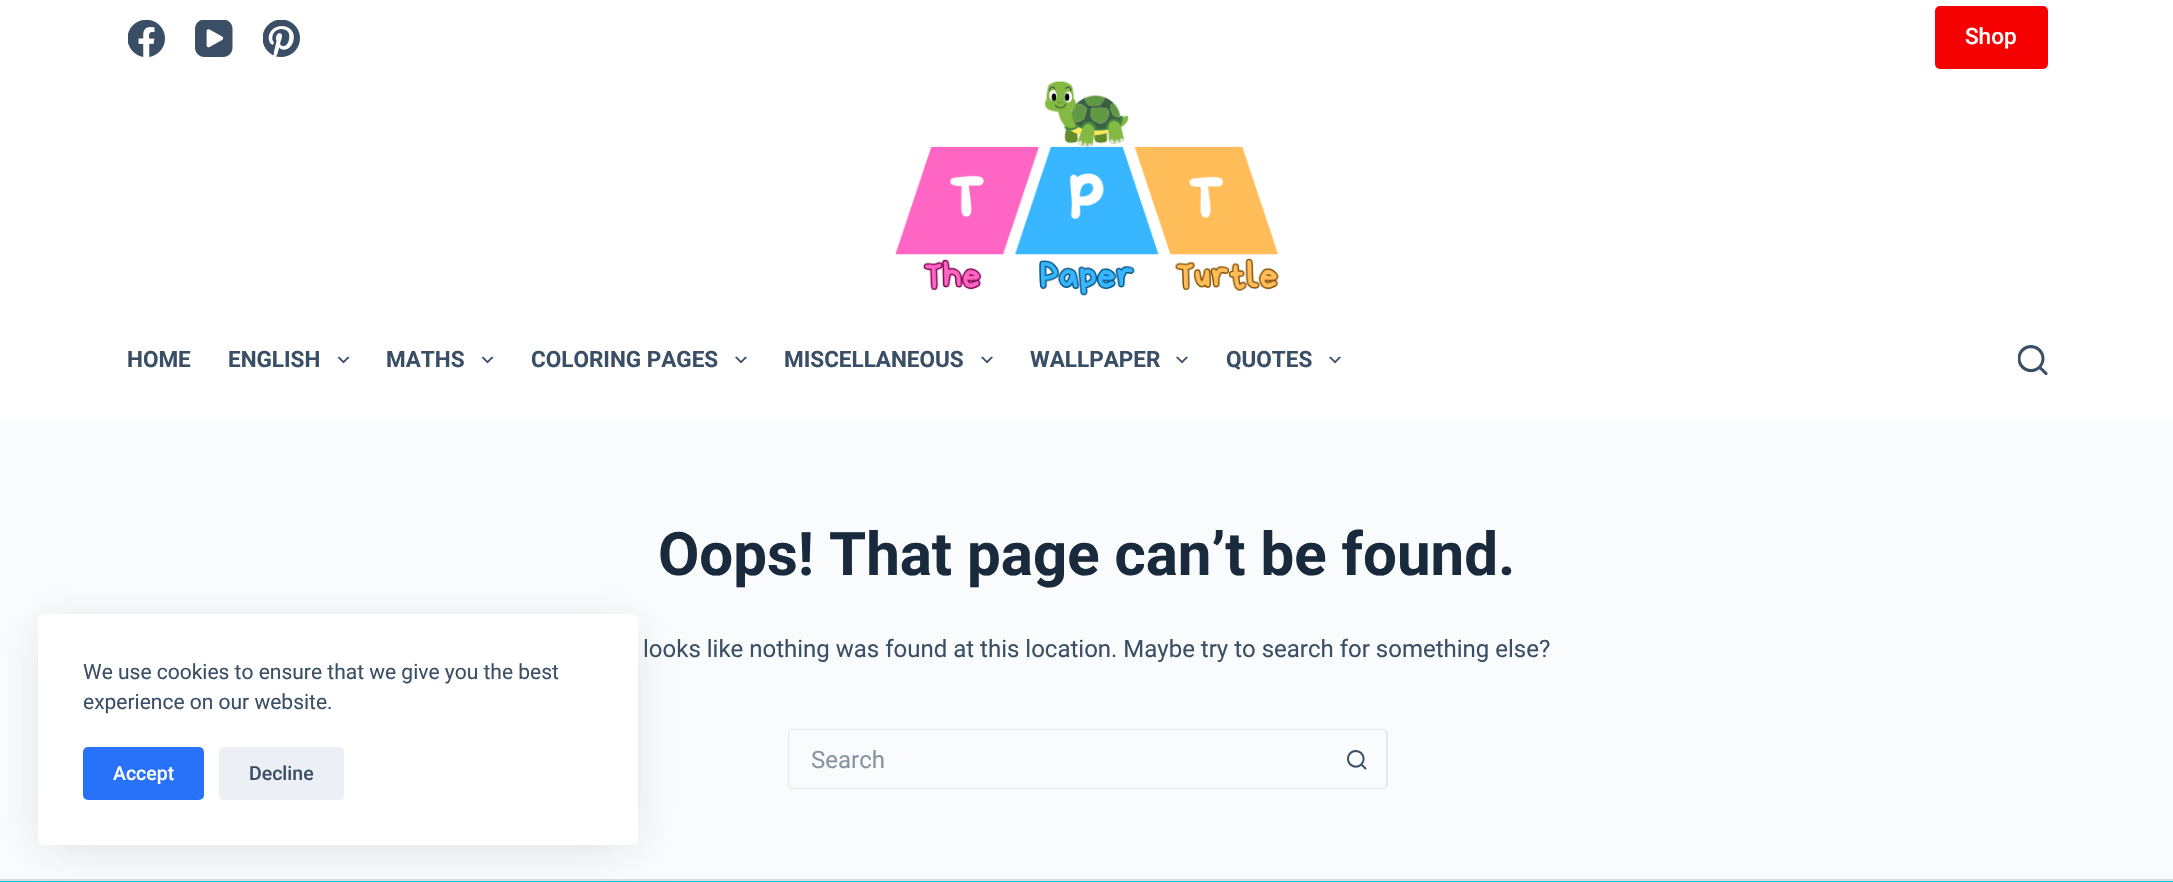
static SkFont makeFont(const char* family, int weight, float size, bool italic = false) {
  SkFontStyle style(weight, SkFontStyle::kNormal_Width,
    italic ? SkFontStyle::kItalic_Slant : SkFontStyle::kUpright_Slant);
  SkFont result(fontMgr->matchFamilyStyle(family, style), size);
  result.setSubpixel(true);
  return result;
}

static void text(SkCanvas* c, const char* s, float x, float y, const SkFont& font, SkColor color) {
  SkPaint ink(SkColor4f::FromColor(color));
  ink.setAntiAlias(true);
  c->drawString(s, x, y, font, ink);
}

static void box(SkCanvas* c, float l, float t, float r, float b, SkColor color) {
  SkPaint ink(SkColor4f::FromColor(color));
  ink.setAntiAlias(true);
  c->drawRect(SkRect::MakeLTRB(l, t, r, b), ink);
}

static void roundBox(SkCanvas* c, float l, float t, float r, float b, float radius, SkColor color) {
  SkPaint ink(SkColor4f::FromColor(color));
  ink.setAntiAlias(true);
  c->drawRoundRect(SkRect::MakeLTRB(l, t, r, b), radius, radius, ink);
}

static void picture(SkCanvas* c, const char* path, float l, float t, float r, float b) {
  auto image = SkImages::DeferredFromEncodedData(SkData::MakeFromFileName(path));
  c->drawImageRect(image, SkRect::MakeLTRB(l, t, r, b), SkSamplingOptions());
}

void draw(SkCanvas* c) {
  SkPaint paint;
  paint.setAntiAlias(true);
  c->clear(0xfffafbfc);
  box(c, 0, 0, 2173, 420, 0xffffffff);
  picture(c, "img_01.png", 128, 20, 165, 57);
  picture(c, "img_02.png", 195, 20, 233, 57);
  picture(c, "img_03.png", 263, 20, 300, 57);
  roundBox(c, 1935, 6, 2048, 69, 5, 0xfff60101);
  SkFont face1 = makeFont("Roboto", 500, 22.5f);
  text(c, "Shop", 1965, 44, face1, 0xffffffff);
  picture(c, "img_04.png", 895, 81, 1279, 296);
  SkFont face2 = makeFont("Roboto", 700, 22.5f);
  text(c, "HOME", 127, 367, face2, 0xff3a4f66);
  text(c, "ENGLISH", 228, 367, face2, 0xff3a4f66);
  picture(c, "img_05.png", 338, 356, 350, 364);
  text(c, "MATHS", 386, 367, face2, 0xff3a4f66);
  picture(c, "img_05.png", 482, 356, 494, 364);
  text(c, "COLORING PAGES", 531, 367, face2, 0xff3a4f66);
  picture(c, "img_06.png", 735, 356, 747, 364);
  text(c, "MISCELLANEOUS", 784, 367, face2, 0xff3a4f66);
  picture(c, "img_06.png", 981, 356, 993, 364);
  text(c, "WALLPAPER", 1030, 367, face2, 0xff3a4f66);
  picture(c, "img_06.png", 1176, 356, 1188, 364);
  text(c, "QUOTES", 1226, 367, face2, 0xff3a4f66);
  picture(c, "img_06.png", 1329, 356, 1341, 364);
  picture(c, "img_07.png", 2018, 345, 2048, 375);
  SkFont face3 = makeFont("Roboto", 700, 60);
  text(c, "Oops! That page can’t be found.", 658, 575, face3, 0xff192a3d);
  SkFont face4 = makeFont("Roboto", 400, 24);
  text(c, "looks like nothing was found at this location. Maybe try to search for something else?", 643, 657, face4, 0xff3a4f66);
  paint.setColor(0xffe1e8ed);
  c->drawPath(SkPathBuilder(SkPathFillType::kEvenOdd).moveTo(792, 729).lineTo(1328, 729).lineTo(1328, 789).lineTo(792, 789).cubicTo(790, 789, 788, 787, 788, 784).lineTo(788, 734).cubicTo(788, 731, 790, 729, 792, 729).close().moveTo(792, 730).lineTo(1328, 730).lineTo(1328, 788).lineTo(792, 788).cubicTo(790, 788, 789, 786, 789, 784).lineTo(789, 734).cubicTo(789, 732, 790, 730, 792, 730).close().detach(), paint);
  text(c, "Search", 811, 768, face4, 0xff8794a2);
  c->drawPath(SkPathBuilder(SkPathFillType::kEvenOdd).moveTo(1328, 729).lineTo(1383, 729).cubicTo(1385, 729, 1388, 731, 1388, 734).lineTo(1388, 784).cubicTo(1388, 787, 1385, 789, 1383, 789).lineTo(1328, 789).close().moveTo(1328, 730).lineTo(1383, 730).cubicTo(1385, 730, 1386, 732, 1386, 734).lineTo(1386, 784).cubicTo(1386, 786, 1385, 788, 1383, 788).lineTo(1328, 788).close().detach(), paint);
  picture(c, "img_08.png", 1347, 750, 1367, 770);
  box(c, 0, 881, 2173, 882, 0xff00c9e3);
  box(c, 0, 879, 2173, 881, 0xffdddddd);
  paint.setColor(0x26223865);
  paint.setMaskFilter(SkMaskFilter::MakeBlur(kNormal_SkBlurStyle, 22.5f));
  c->drawRect(SkRect::MakeLTRB(45, 629, 630, 845), paint);
  paint.setMaskFilter(nullptr);
  roundBox(c, 38, 614, 638, 845, 5, 0xffffffff);
  SkFont face5 = makeFont("Roboto", 400, 21);
  text(c, "We use cookies to ensure that we give you the best", 83, 679, face5, 0xff3a4f66);
  text(c, "experience on our website.", 83, 709, face5, 0xff3a4f66);
  roundBox(c, 83, 747, 204, 800, 5, 0xff2872fa);
  SkFont face6 = makeFont("Roboto", 500, 19.5f);
  text(c, "Accept", 113, 780, face6, 0xffffffff);
  roundBox(c, 219, 747, 344, 800, 5, 0xffeceff3);
  text(c, "Decline", 249, 780, face6, 0xff3a4f66);
}
